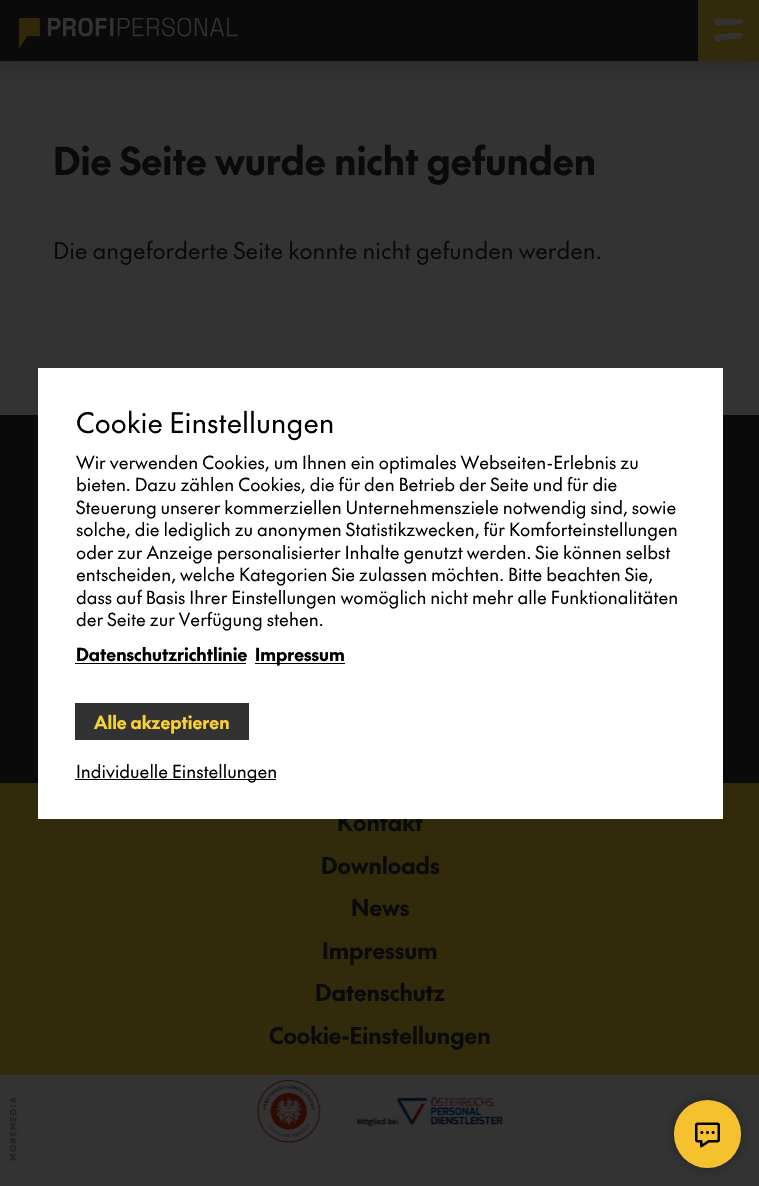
static SkFont makeFont(const char* family, int weight, float size, bool italic = false) {
  SkFontStyle style(weight, SkFontStyle::kNormal_Width,
    italic ? SkFontStyle::kItalic_Slant : SkFontStyle::kUpright_Slant);
  SkFont result(fontMgr->matchFamilyStyle(family, style), size);
  result.setSubpixel(true);
  return result;
}

static void text(SkCanvas* c, const char* s, float x, float y, const SkFont& font, SkColor color) {
  SkPaint ink(SkColor4f::FromColor(color));
  ink.setAntiAlias(true);
  c->drawString(s, x, y, font, ink);
}

static void box(SkCanvas* c, float l, float t, float r, float b, SkColor color) {
  SkPaint ink(SkColor4f::FromColor(color));
  ink.setAntiAlias(true);
  c->drawRect(SkRect::MakeLTRB(l, t, r, b), ink);
}

static void roundBox(SkCanvas* c, float l, float t, float r, float b, float radius, SkColor color) {
  SkPaint ink(SkColor4f::FromColor(color));
  ink.setAntiAlias(true);
  c->drawRoundRect(SkRect::MakeLTRB(l, t, r, b), radius, radius, ink);
}

static void picture(SkCanvas* c, const char* path, float l, float t, float r, float b) {
  auto image = SkImages::DeferredFromEncodedData(SkData::MakeFromFileName(path));
  c->drawImageRect(image, SkRect::MakeLTRB(l, t, r, b), SkSamplingOptions());
}

void draw(SkCanvas* c) {
  SkPaint paint;
  paint.setAntiAlias(true);
  c->clear(0xff333333);
  paint.setColor(0x4d000000);
  paint.setMaskFilter(SkMaskFilter::MakeBlur(kNormal_SkBlurStyle, 9.5f));
  c->drawRect(SkRect::MakeLTRB(0, -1, 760, 61), paint);
  paint.setMaskFilter(nullptr);
  box(c, 0, 0, 698, 61, 0xff0a0a0a);
  picture(c, "img_01.png", 19, 18, 238, 49);
  box(c, 698, 0, 759, 61, 0xff312a0b);
  picture(c, "img_02.png", 713, 18, 744, 26);
  picture(c, "img_03.png", 713, 32, 744, 42);
  SkFont face1 = makeFont("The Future", 700, 37.5f);
  text(c, "Die Seite wurde nicht gefunden", 53, 175, face1, 0xff0a0a0a);
  SkFont face2 = makeFont("The Future", 400, 22.5f);
  text(c, "Die angeforderte Seite konnte nicht gefunden werden.", 53, 259, face2, 0xff0a0a0a);
  box(c, 0, 415, 759, 783, 0xff0a0a0a);
  box(c, 0, 783, 759, 1075, 0xff312a0b);
  SkFont face3 = makeFont("The Future", 700, 22.5f);
  text(c, "Kontakt", 337, 831, face3, 0xff0a0a0a);
  text(c, "Downloads", 321, 874, face3, 0xff0a0a0a);
  text(c, "News", 351, 916, face3, 0xff0a0a0a);
  text(c, "Impressum", 322, 959, face3, 0xff0a0a0a);
  text(c, "Datenschutz", 315, 1001, face3, 0xff0a0a0a);
  text(c, "Cookie-Einstellungen", 269, 1044, face3, 0xff0a0a0a);
  picture(c, "img_04.png", 257, 1080, 321, 1143);
  picture(c, "img_05.png", 357, 1095, 503, 1127);
  box(c, 38, 368, 723, 819, 0xffffffff);
  SkFont face4 = makeFont("The Future", 400, 27.5f);
  text(c, "Cookie Einstellungen", 76, 433, face4, 0xff000000);
  SkFont face5 = makeFont("The Future", 400, 17.5f);
  text(c, "Wir verwenden Cookies, um Ihnen ein optimales Webseiten-Erlebnis zu", 76, 469, face5, 0xff000000);
  text(c, "bieten. Dazu zählen Cookies, die für den Betrieb der Seite und für die", 76, 491, face5, 0xff000000);
  text(c, "Steuerung unserer kommerziellen Unternehmensziele notwendig sind, sowie", 76, 514, face5, 0xff000000);
  text(c, "solche, die lediglich zu anonymen Statistikzwecken, für Komforteinstellungen", 76, 536, face5, 0xff000000);
  text(c, "oder zur Anzeige personalisierter Inhalte genutzt werden. Sie können selbst", 76, 559, face5, 0xff000000);
  text(c, "entscheiden, welche Kategorien Sie zulassen möchten. Bitte beachten Sie,", 76, 581, face5, 0xff000000);
  text(c, "dass auf Basis Ihrer Einstellungen womöglich nicht mehr alle Funktionalitäten", 76, 604, face5, 0xff000000);
  text(c, "der Seite zur Verfügung stehen.", 76, 626, face5, 0xff000000);
  SkFont face6 = makeFont("The Future", 700, 17.5f);
  text(c, "Datenschutzrichtlinie", 76, 661, face6, 0xff000000);
  box(c, 75, 663, 246, 664, 0xff000000);
  box(c, 255, 663, 345, 664, 0xff000000);
  text(c, "Impressum", 255, 661, face6, 0xff000000);
  box(c, 75, 703, 249, 740, 0xff323232);
  text(c, "Alle akzeptieren", 94, 729, face6, 0xfff7d138);
  box(c, 75, 779, 276, 780, 0xff000000);
  text(c, "Individuelle Einstellungen", 76, 778, face5, 0xff000000);
  picture(c, "img_06.png", 10, 1097, 17, 1161);
  paint.setMaskFilter(SkMaskFilter::MakeBlur(kNormal_SkBlurStyle, 6));
  c->drawRoundRect(SkRect::MakeLTRB(674, 1100, 741, 1168), 33.5f, 33.5f, paint);
  paint.setMaskFilter(nullptr);
  roundBox(c, 674, 1100, 741, 1168, 33.5f, 0xfff6c12e);
  picture(c, "img_07.png", 695, 1122, 720, 1148);
}
